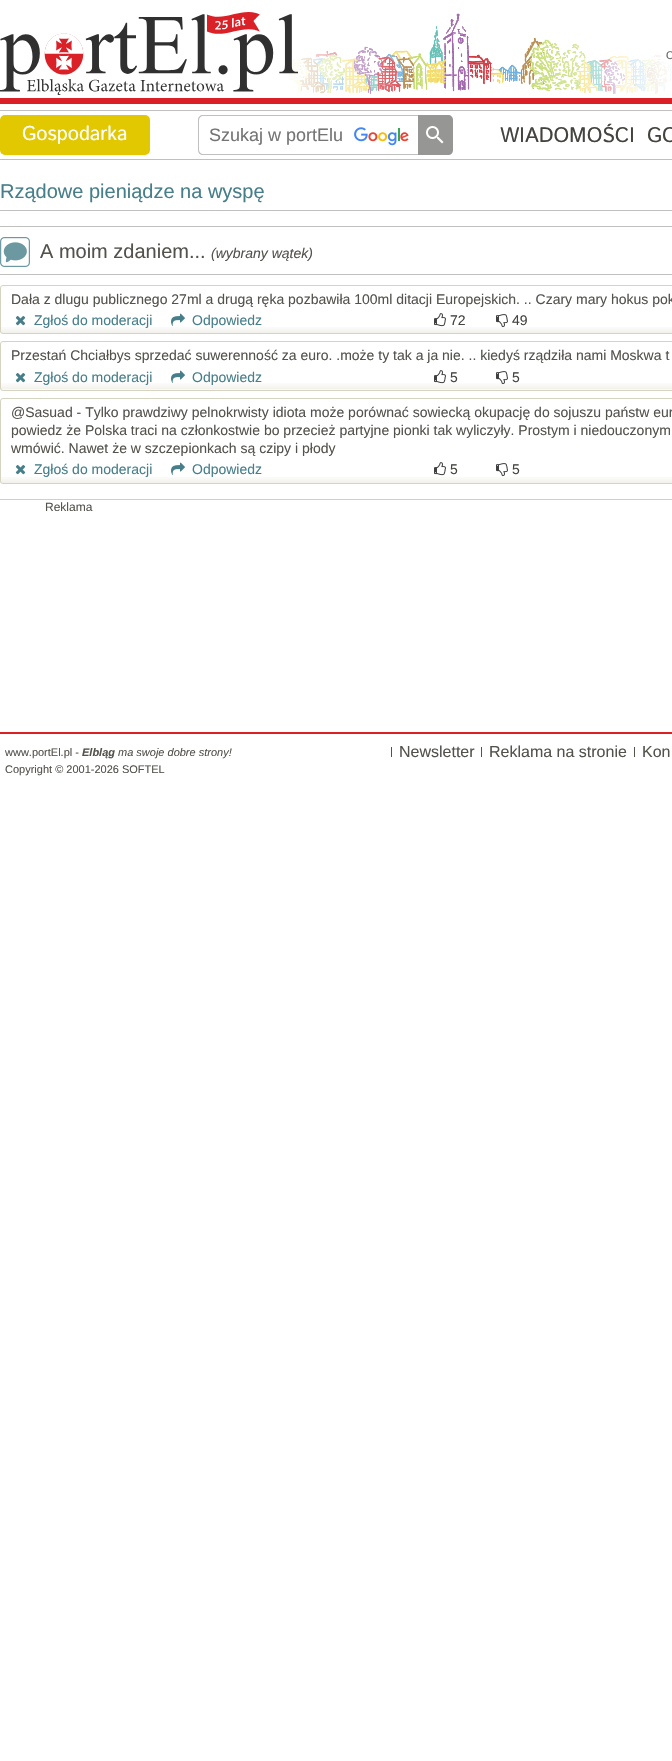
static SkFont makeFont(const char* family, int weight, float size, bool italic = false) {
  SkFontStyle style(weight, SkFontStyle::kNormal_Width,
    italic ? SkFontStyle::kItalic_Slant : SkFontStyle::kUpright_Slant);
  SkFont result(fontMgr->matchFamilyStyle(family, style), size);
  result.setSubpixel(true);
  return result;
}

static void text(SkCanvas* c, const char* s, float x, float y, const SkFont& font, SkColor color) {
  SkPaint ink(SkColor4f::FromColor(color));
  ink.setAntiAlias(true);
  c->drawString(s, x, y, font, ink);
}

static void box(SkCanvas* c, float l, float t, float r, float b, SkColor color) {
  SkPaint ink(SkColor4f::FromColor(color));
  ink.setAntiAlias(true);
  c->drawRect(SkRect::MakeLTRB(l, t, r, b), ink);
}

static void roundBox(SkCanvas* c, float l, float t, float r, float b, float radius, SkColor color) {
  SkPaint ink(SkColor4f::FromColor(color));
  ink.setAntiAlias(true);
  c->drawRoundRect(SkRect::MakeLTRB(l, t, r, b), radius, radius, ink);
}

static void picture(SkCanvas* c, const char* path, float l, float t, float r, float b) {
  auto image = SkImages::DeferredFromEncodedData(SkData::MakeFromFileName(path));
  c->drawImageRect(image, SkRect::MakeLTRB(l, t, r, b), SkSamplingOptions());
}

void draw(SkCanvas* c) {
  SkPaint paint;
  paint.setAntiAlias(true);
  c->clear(0xffffffff);
  picture(c, "img_01.png", 286, 13, 672, 94);
  box(c, 0, 98, 672, 104, 0xffdb1f26);
  picture(c, "img_02.png", 0, 12, 298, 95);
  SkFont face1 = makeFont("Istok Web", 400, 11);
  text(c, "O", 666, 59, face1, 0xff666666);
  box(c, 0, 110, 672, 111, 0xffc0c0bf);
  box(c, 0, 159, 672, 160, 0xffc0c0bf);
  roundBox(c, 0, 115, 150, 155, 5, 0xffe1c801);
  SkFont face2 = makeFont("Istok Web", 400, 20);
  text(c, "Gospodarka", 22, 140, face2, 0xffffffff);
  picture(c, "img_03.png", 354, 127, 409, 146);
  paint.setColor(0xffc0c0bf);
  c->drawPath(SkPathBuilder(SkPathFillType::kEvenOdd).moveTo(203, 115).lineTo(418, 115).lineTo(418, 155).lineTo(203, 155).cubicTo(200, 155, 198, 153, 198, 150).lineTo(198, 120).cubicTo(198, 117, 200, 115, 203, 115).close().moveTo(203, 116).lineTo(418, 116).lineTo(418, 154).lineTo(203, 154).cubicTo(201, 154, 199, 152, 199, 150).lineTo(199, 120).cubicTo(199, 118, 201, 116, 203, 116).close().detach(), paint);
  SkFont face3 = makeFont("Liberation Sans", 400, 18);
  text(c, "Szukaj w portElu", 209, 141, face3, 0xff757575);
  paint.setColor(0xff969695);
  c->drawPath(SkPathBuilder().moveTo(418, 115).lineTo(448, 115).cubicTo(451, 115, 453, 117, 453, 120).lineTo(453, 150).cubicTo(453, 153, 451, 155, 448, 155).lineTo(418, 155).close().detach(), paint);
  picture(c, "img_04.png", 426, 126, 444, 144);
  SkFont face4 = makeFont("Istok Web", 400, 21);
  text(c, "WIADOMOŚCI", 500, 142, face4, 0xff44433f);
  text(c, "GO", 647, 142, face4, 0xff44433f);
  box(c, 0, 210, 672, 211, 0xffc0c0bf);
  SkFont face5 = makeFont("Liberation Sans", 400, 20);
  text(c, "Rządowe pieniądze na wyspę", 0, 198, face5, 0xff467e8a);
  box(c, 0, 226, 672, 227, 0xffc0c0bf);
  box(c, 0, 274, 672, 275, 0xffc0c0bf);
  picture(c, "img_05.png", 0, 237, 30, 267);
  text(c, "A moim zdaniem...", 40, 258, face5, 0xff54524d);
  SkFont face6 = makeFont("Liberation Sans", 400, 14, true);
  text(c, "(wybrany wątek)", 211, 258, face6, 0xff54524d);
  picture(c, "img_06.png", 0, 327, 672, 333);
  paint.setStyle(SkPaint::kStroke_Style);
  paint.setStrokeWidth(1);
  paint.setColor(0xffd7d3c1);
  c->drawRoundRect(SkRect::MakeLTRB(0.5f, 285.5f, 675.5f, 333.5f), 2.5f, 2.5f, paint);
  SkFont face7 = makeFont("Liberation Sans", 400, 14);
  text(c, "Dała z dlugu publicznego 27ml a drugą ręka pozbawiła 100ml ditacji Europejskich. .. Czary mary hokus pok", 11, 304, face7, 0xff54524d);
  picture(c, "img_07.png", 15, 316, 26, 326);
  text(c, "Zgłoś do moderacji", 34, 325, face7, 0xff467e8a);
  picture(c, "img_08.png", 171, 313, 185, 326);
  text(c, "Odpowiedz", 192, 325, face7, 0xff467e8a);
  picture(c, "img_09.png", 434, 313, 446, 327);
  text(c, "72", 450, 325, face7, 0xff44433f);
  picture(c, "img_10.png", 496, 314, 508, 328);
  text(c, "49", 512, 325, face7, 0xff44433f);
  picture(c, "img_11.png", 0, 383, 672, 390);
  c->drawRoundRect(SkRect::MakeLTRB(0.5f, 341.5f, 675.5f, 390.5f), 2.5f, 2.5f, paint);
  text(c, "Przestań Chciałbys sprzedać suwerenność za euro. .może ty tak a ja nie. .. kiedyś rządziła nami Moskwa t", 11, 360, face7, 0xff54524d);
  picture(c, "img_07.png", 15, 373, 26, 383);
  text(c, "Zgłoś do moderacji", 34, 382, face7, 0xff467e8a);
  picture(c, "img_08.png", 171, 370, 185, 383);
  text(c, "Odpowiedz", 192, 382, face7, 0xff467e8a);
  picture(c, "img_12.png", 434, 370, 446, 384);
  text(c, "5", 450, 382, face7, 0xff44433f);
  picture(c, "img_13.png", 496, 371, 508, 385);
  text(c, "5", 512, 382, face7, 0xff44433f);
  picture(c, "img_14.png", 0, 477, 672, 483);
  c->drawRoundRect(SkRect::MakeLTRB(0.5f, 398.5f, 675.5f, 483.5f), 2.5f, 2.5f, paint);
  text(c, "@Sasuad - Tylko prawdziwy pelnokrwisty idiota może porównać sowiecką okupację do sojuszu państw eur", 11, 417, face7, 0xff54524d);
  text(c, "powiedz że Polska traci na członkostwie bo przecież partyjne pionki tak wyliczyły. Prostym i niedouczonym", 11, 435, face7, 0xff54524d);
  text(c, "wmówić. Nawet że w szczepionkach są czipy i płody", 11, 453, face7, 0xff54524d);
  picture(c, "img_07.png", 15, 465, 26, 475);
  text(c, "Zgłoś do moderacji", 34, 474, face7, 0xff467e8a);
  picture(c, "img_08.png", 171, 462, 185, 475);
  text(c, "Odpowiedz", 192, 474, face7, 0xff467e8a);
  picture(c, "img_09.png", 434, 462, 446, 476);
  text(c, "5", 450, 474, face7, 0xff44433f);
  picture(c, "img_15.png", 496, 463, 508, 477);
  text(c, "5", 512, 474, face7, 0xff44433f);
  box(c, 0, 499, 672, 500, 0xffe8e51a);
  SkFont face8 = makeFont("Liberation Sans", 400, 12);
  text(c, "Reklama", 45, 511, face8, 0xff54524d);
  box(c, 0, 732, 672, 734, 0xffdb1f26);
  SkFont face9 = makeFont("Liberation Sans", 400, 11);
  text(c, "www.portEl.pl -", 5, 756, face9, 0xff54524d);
  SkFont face10 = makeFont("Liberation Sans", 700, 11, true);
  text(c, "Elbląg", 82, 756, face10, 0xff54524d);
  SkFont face11 = makeFont("Liberation Sans", 400, 11, true);
  text(c, "ma swoje dobre strony!", 118, 756, face11, 0xff54524d);
  text(c, "Copyright © 2001-2026 SOFTEL", 5, 773, face9, 0xff54524d);
  box(c, 391, 747, 392, 757, 0xff54524d);
  SkFont face12 = makeFont("Liberation Sans", 400, 16);
  text(c, "Newsletter", 399, 757, face12, 0xff54524d);
  box(c, 481, 747, 482, 757, 0xff54524d);
  text(c, "Reklama na stronie", 489, 757, face12, 0xff54524d);
  box(c, 634, 747, 635, 757, 0xff54524d);
  text(c, "Kon", 642, 757, face12, 0xff54524d);
}
